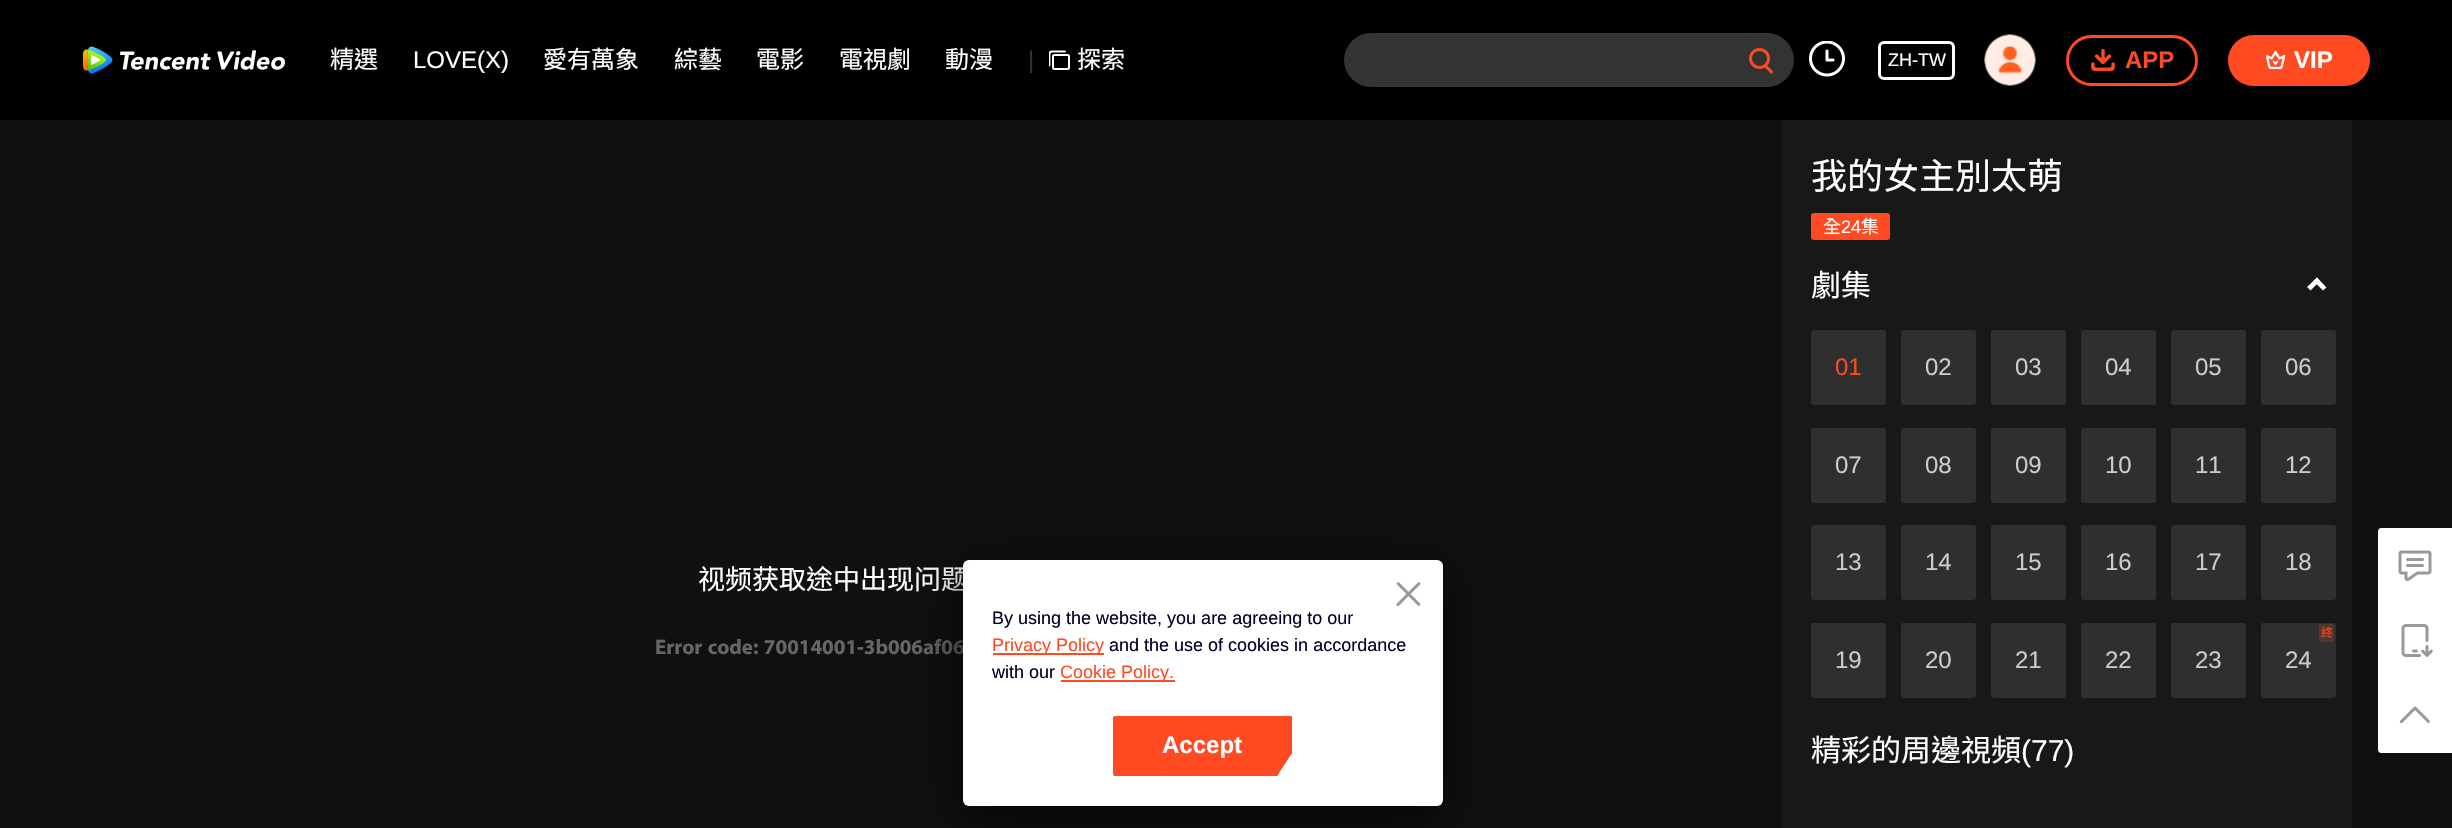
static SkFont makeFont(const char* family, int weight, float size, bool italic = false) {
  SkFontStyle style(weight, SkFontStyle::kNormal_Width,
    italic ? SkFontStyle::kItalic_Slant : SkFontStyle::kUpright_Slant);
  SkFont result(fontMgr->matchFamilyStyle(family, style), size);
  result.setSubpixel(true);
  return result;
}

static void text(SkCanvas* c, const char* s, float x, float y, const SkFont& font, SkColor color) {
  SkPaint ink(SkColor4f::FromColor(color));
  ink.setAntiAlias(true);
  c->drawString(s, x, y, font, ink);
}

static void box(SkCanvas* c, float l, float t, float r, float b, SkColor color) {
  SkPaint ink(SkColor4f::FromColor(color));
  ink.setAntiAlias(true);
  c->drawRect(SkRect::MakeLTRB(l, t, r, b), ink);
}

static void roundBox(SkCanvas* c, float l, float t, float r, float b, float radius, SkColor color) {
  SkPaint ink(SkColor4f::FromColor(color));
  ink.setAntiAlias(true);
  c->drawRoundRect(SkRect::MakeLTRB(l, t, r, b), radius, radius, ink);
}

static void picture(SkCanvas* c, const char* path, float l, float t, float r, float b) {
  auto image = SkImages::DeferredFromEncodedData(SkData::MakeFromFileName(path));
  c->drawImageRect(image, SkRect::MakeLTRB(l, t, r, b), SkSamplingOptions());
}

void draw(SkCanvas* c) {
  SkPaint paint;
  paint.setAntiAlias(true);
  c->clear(0xff101010);
  box(c, 0, 0, 2452, 120, 0xff000000);
  picture(c, "img_01.png", 83, 46, 285, 74);
  SkFont face1 = makeFont("Noto Sans CJK TC", 400, 24);
  text(c, "精選", 330, 68, face1, 0xffffffff);
  SkFont face2 = makeFont("Liberation Sans", 400, 24);
  text(c, "LOVE(X)", 413, 68, face2, 0xffffffff);
  text(c, "愛有萬象", 543, 68, face1, 0xffffffff);
  text(c, "綜藝", 674, 68, face1, 0xffffffff);
  text(c, "電影", 756, 68, face1, 0xffffffff);
  text(c, "電視劇", 839, 68, face1, 0xffffffff);
  text(c, "動漫", 945, 68, face1, 0xffffffff);
  text(c, "|", 1028, 68, face2, 0xff333333);
  paint.setStyle(SkPaint::kStroke_Style);
  paint.setStrokeWidth(2);
  paint.setColor(0xffffffff);
  c->drawRoundRect(SkRect::MakeLTRB(1053, 55, 1069, 69), 1.5f, 1.5f, paint);
  c->save();
  c->clipRect(SkRect::MakeLTRB(1049, 50, 1070, 71));
  paint.setStrokeWidth(1.8f);
  paint.setStrokeCap(SkPaint::kRound_Cap);
  c->drawPath(SkPathBuilder().moveTo(1065, 51.5f).lineTo(1052, 51.5f).cubicTo(1050.5f, 51.5f, 1049.5f, 52.5f, 1049.5f, 54).lineTo(1049.5f, 65.5f).detach(), paint);
  c->restore();
  text(c, "探索", 1077, 68, face1, 0xffffffff);
  roundBox(c, 1344, 33, 1794, 87, 27, 0xff333333);
  picture(c, "img_02.png", 1749, 48, 1773, 74);
  picture(c, "img_03.png", 1809, 41, 1845, 77);
  paint.setStrokeWidth(3);
  paint.setStrokeCap(SkPaint::kButt_Cap);
  c->drawRoundRect(SkRect::MakeLTRB(1879.5f, 42.5f, 1953.5f, 78.5f), 4.5f, 4.5f, paint);
  SkFont face3 = makeFont("Liberation Sans", 400, 18);
  text(c, "ZH-TW", 1888, 66, face3, 0xffffffff);
  picture(c, "img_04.png", 1984, 34, 2036, 86);
  paint.setColor(0xffff4a22);
  c->drawRoundRect(SkRect::MakeLTRB(2067.5f, 36.5f, 2196.5f, 84.5f), 24, 24, paint);
  picture(c, "img_05.png", 2091, 49, 2115, 71);
  SkFont face4 = makeFont("Liberation Sans", 700, 24);
  text(c, "APP", 2125, 68, face4, 0xffff4a22);
  roundBox(c, 2228, 35, 2370, 86, 25.5f, 0xffff4a22);
  picture(c, "img_06.png", 2266, 50, 2286, 70);
  text(c, "VIP", 2294, 68, face4, 0xffffffff);
  SkFont face5 = makeFont("Noto Sans CJK TC", 400, 27);
  text(c, "视频获取途中出现问题", 698, 589, face5, 0xffffffff);
  SkFont face6 = makeFont("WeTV", 700, 21);
  text(c, "Error code: 70014001-3b006af06", 655, 654, face6, 0xff666666);
  box(c, 1782, 120, 2352, 828, 0xff181818);
  SkFont face7 = makeFont("Noto Sans CJK TC", 400, 36);
  text(c, "我的女主別太萌", 1811, 189, face7, 0xffffffff);
  roundBox(c, 1811, 213, 1890, 240, 3, 0xffff4a22);
  SkFont face8 = makeFont("Noto Sans CJK TC", 400, 18);
  text(c, "全", 1823, 233, face8, 0xffffffff);
  text(c, "24", 1841, 233, face3, 0xffffffff);
  text(c, "集", 1861, 233, face8, 0xffffffff);
  SkFont face9 = makeFont("Noto Sans CJK TC", 400, 30);
  text(c, "劇集", 1811, 296, face9, 0xffffffff);
  paint.setStyle(SkPaint::kFill_Style);
  paint.setColor(0xffffffff);
  c->drawPath(SkPathBuilder().moveTo(2310.5f, 290.5f).lineTo(2307, 287).lineTo(2317, 277.5f).lineTo(2320, 281).close().detach(), paint);
  c->drawPath(SkPathBuilder().moveTo(2323, 290.5f).lineTo(2313.5f, 281).lineTo(2317, 277.5f).lineTo(2326.5f, 287.5f).close().detach(), paint);
  roundBox(c, 1811, 330, 1886, 405, 3, 0xff2f2f2f);
  text(c, "01", 1835, 375, face2, 0xffff4a22);
  roundBox(c, 1901, 330, 1976, 405, 3, 0xff2f2f2f);
  text(c, "02", 1925, 375, face2, 0xffcccccc);
  roundBox(c, 1991, 330, 2066, 405, 3, 0xff2f2f2f);
  text(c, "03", 2015, 375, face2, 0xffcccccc);
  roundBox(c, 2081, 330, 2156, 405, 3, 0xff2f2f2f);
  text(c, "04", 2105, 375, face2, 0xffcccccc);
  roundBox(c, 2171, 330, 2246, 405, 3, 0xff2f2f2f);
  text(c, "05", 2195, 375, face2, 0xffcccccc);
  roundBox(c, 2261, 330, 2336, 405, 3, 0xff2f2f2f);
  text(c, "06", 2285, 375, face2, 0xffcccccc);
  roundBox(c, 1811, 428, 1886, 503, 3, 0xff2f2f2f);
  text(c, "07", 1835, 473, face2, 0xffcccccc);
  roundBox(c, 1901, 428, 1976, 503, 3, 0xff2f2f2f);
  text(c, "08", 1925, 473, face2, 0xffcccccc);
  roundBox(c, 1991, 428, 2066, 503, 3, 0xff2f2f2f);
  text(c, "09", 2015, 473, face2, 0xffcccccc);
  roundBox(c, 2081, 428, 2156, 503, 3, 0xff2f2f2f);
  text(c, "10", 2105, 473, face2, 0xffcccccc);
  roundBox(c, 2171, 428, 2246, 503, 3, 0xff2f2f2f);
  text(c, "11", 2195, 473, face2, 0xffcccccc);
  roundBox(c, 2261, 428, 2336, 503, 3, 0xff2f2f2f);
  text(c, "12", 2285, 473, face2, 0xffcccccc);
  roundBox(c, 1811, 525, 1886, 600, 3, 0xff2f2f2f);
  text(c, "13", 1835, 570, face2, 0xffcccccc);
  roundBox(c, 1901, 525, 1976, 600, 3, 0xff2f2f2f);
  text(c, "14", 1925, 570, face2, 0xffcccccc);
  roundBox(c, 1991, 525, 2066, 600, 3, 0xff2f2f2f);
  text(c, "15", 2015, 570, face2, 0xffcccccc);
  roundBox(c, 2081, 525, 2156, 600, 3, 0xff2f2f2f);
  text(c, "16", 2105, 570, face2, 0xffcccccc);
  roundBox(c, 2171, 525, 2246, 600, 3, 0xff2f2f2f);
  text(c, "17", 2195, 570, face2, 0xffcccccc);
  roundBox(c, 2261, 525, 2336, 600, 3, 0xff2f2f2f);
  text(c, "18", 2285, 570, face2, 0xffcccccc);
  roundBox(c, 1811, 623, 1886, 698, 3, 0xff2f2f2f);
  text(c, "19", 1835, 668, face2, 0xffcccccc);
  roundBox(c, 1901, 623, 1976, 698, 3, 0xff2f2f2f);
  text(c, "20", 1925, 668, face2, 0xffcccccc);
  roundBox(c, 1991, 623, 2066, 698, 3, 0xff2f2f2f);
  text(c, "21", 2015, 668, face2, 0xffcccccc);
  roundBox(c, 2081, 623, 2156, 698, 3, 0xff2f2f2f);
  text(c, "22", 2105, 668, face2, 0xffcccccc);
  roundBox(c, 2171, 623, 2246, 698, 3, 0xff2f2f2f);
  text(c, "23", 2195, 668, face2, 0xffcccccc);
  roundBox(c, 2261, 623, 2336, 698, 3, 0xff2f2f2f);
  paint.setColor(0xff53362e);
  c->drawPath(SkPathBuilder().moveTo(2319, 624).lineTo(2332, 624).cubicTo(2333, 624, 2334, 625, 2334, 626).lineTo(2334, 642).lineTo(2321, 642).cubicTo(2320, 642, 2319, 641, 2319, 640).close().detach(), paint);
  SkFont face10 = makeFont("Noto Sans CJK TC", 400, 12);
  text(c, "終", 2321, 637, face10, 0xffff4a22);
  text(c, "24", 2285, 668, face2, 0xffcccccc);
  text(c, "精彩的周邊視頻", 1811, 761, face9, 0xffffffff);
  SkFont face11 = makeFont("Liberation Sans", 400, 30);
  text(c, "(77)", 2021, 761, face11, 0xffffffff);
  paint.setColor(0xffffffff);
  c->drawPath(SkPathBuilder().moveTo(2381, 528).lineTo(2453, 528).lineTo(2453, 753).lineTo(2381, 753).cubicTo(2379.5f, 753, 2378, 751.5f, 2378, 750).lineTo(2378, 531).cubicTo(2378, 529.5f, 2379.5f, 528, 2381, 528).close().detach(), paint);
  picture(c, "img_07.png", 2398, 550, 2432, 581);
  picture(c, "img_08.png", 2401, 624, 2433, 657);
  picture(c, "img_09.png", 2399, 706, 2430, 724);
  paint.setColor(0xcc000000);
  paint.setMaskFilter(SkMaskFilter::MakeBlur(kNormal_SkBlurStyle, 27));
  c->drawRoundRect(SkRect::MakeLTRB(963, 572, 1443, 818), 6, 6, paint);
  paint.setMaskFilter(nullptr);
  roundBox(c, 963, 560, 1443, 806, 6, 0xffffffff);
  picture(c, "img_10.png", 1396, 582, 1421, 607);
  text(c, "By using the website, you are agreeing to our", 992, 624, face3, 0xff000028);
  box(c, 993, 653, 1104, 655, 0xffff4a22);
  text(c, "Privacy Policy", 992, 651, face3, 0xffff4a22);
  text(c, "and the use of cookies in accordance", 1109, 651, face3, 0xff000028);
  text(c, "with our", 992, 678, face3, 0xff000028);
  box(c, 1061, 680, 1175, 682, 0xffff4a22);
  text(c, "Cookie Policy.", 1060, 678, face3, 0xffff4a22);
  paint.setColor(0xffff4a22);
  c->drawPath(SkPathBuilder().moveTo(1116, 716).lineTo(1291, 716).lineTo(1292, 717).lineTo(1292, 753).lineTo(1277, 776).lineTo(1114, 776).cubicTo(1114, 775, 1113, 774, 1113, 773).lineTo(1113, 719).cubicTo(1113, 717, 1114, 716, 1116, 716).close().detach(), paint);
  c->drawPath(SkPathBuilder().moveTo(1116, 716).cubicTo(1114, 716, 1113, 717, 1113, 719).lineTo(1113, 773).cubicTo(1113, 774, 1114, 775, 1114, 776).lineTo(1277, 776).lineTo(1279, 773).lineTo(1116, 773).lineTo(1116, 719).lineTo(1290, 719).lineTo(1290, 756).lineTo(1292, 753).lineTo(1292, 717).lineTo(1290, 716).close().detach(), paint);
  text(c, "Accept", 1162, 753, face4, 0xffffffff);
}
